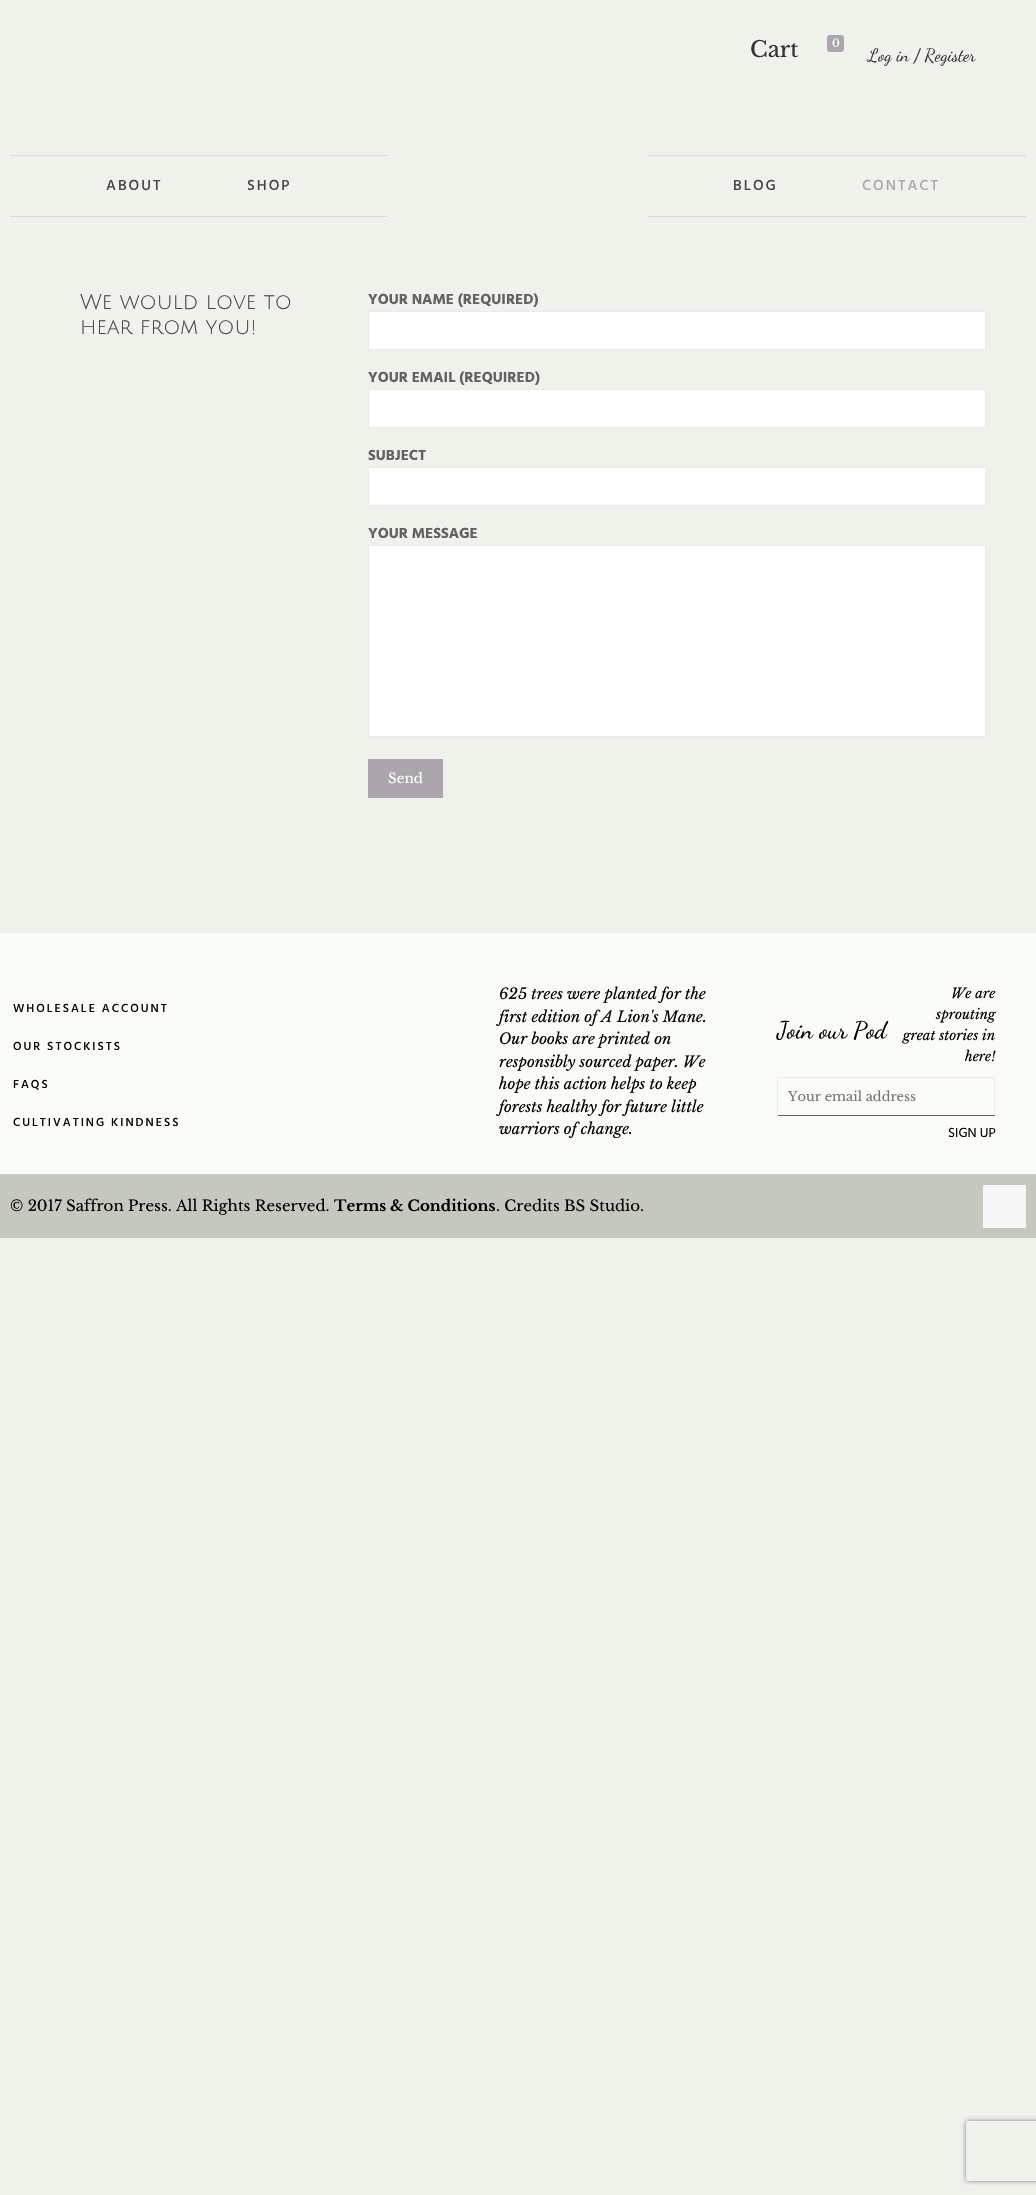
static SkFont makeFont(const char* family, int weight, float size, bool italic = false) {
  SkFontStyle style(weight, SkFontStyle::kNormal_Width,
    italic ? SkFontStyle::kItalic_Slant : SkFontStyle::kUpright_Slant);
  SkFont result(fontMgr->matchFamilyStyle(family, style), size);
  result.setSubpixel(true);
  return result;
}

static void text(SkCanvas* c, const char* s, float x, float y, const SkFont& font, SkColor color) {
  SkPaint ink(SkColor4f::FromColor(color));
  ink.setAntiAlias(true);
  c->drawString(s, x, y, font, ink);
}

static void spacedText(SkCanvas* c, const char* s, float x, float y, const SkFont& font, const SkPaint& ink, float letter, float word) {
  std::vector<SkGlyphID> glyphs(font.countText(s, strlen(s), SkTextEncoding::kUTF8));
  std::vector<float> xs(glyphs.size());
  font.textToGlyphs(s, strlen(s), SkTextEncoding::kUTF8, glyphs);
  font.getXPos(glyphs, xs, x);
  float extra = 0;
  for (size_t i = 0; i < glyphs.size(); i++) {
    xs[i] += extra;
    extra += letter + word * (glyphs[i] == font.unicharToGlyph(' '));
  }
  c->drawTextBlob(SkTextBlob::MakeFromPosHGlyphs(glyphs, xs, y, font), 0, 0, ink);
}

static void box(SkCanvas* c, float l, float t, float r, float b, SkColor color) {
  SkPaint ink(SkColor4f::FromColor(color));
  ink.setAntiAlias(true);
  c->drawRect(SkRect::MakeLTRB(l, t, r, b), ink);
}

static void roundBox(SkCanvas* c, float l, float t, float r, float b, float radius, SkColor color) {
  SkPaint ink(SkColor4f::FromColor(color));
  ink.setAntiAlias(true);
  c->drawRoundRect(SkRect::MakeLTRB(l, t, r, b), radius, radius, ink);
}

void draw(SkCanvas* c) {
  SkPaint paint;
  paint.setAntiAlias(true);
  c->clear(0xffeff2eb);
  SkFont face1 = makeFont("Libre Baskerville", 400, 22);
  text(c, "Cart", 750, 57, face1, 0xff333333);
  roundBox(c, 827, 35, 844, 52, 3, 0xffaca5ad);
  SkFont face2 = makeFont("Libre Baskerville", 400, 11);
  text(c, "0", 832, 47, face2, 0xffffffff);
  SkFont face3 = makeFont("Dancing Script", 400, 18);
  text(c, "Log in / Register", 868, 61, face3, 0xff333333);
  box(c, 10, 155, 388, 156, 0xffd8d8d8);
  box(c, 10, 216, 388, 217, 0xffd8d8d8);
  SkFont face4 = makeFont("Hind", 500, 15);
  paint.setColor(0xff444444);
  spacedText(c, "ABOUT", 106, 190, face4, paint, 2, 0);
  spacedText(c, "SHOP", 247, 190, face4, paint, 2, 0);
  box(c, 648, 155, 1026, 156, 0xffd8d8d8);
  box(c, 648, 216, 1026, 217, 0xffd8d8d8);
  spacedText(c, "BLOG", 733, 190, face4, paint, 2, 0);
  paint.setColor(0xffaca5ad);
  spacedText(c, "CONTACT", 862, 190, face4, paint, 2, 0);
  SkFont face5 = makeFont("Julius Sans One", 400, 21);
  text(c, "We would love to", 80, 309, face5, 0xff444444);
  text(c, "hear from you!", 80, 334, face5, 0xff444444);
  SkFont face6 = makeFont("Hind", 700, 15);
  text(c, "YOUR NAME (REQUIRED)", 368, 304, face6, 0xff626262);
  paint.setColor(0xffffffff);
  c->drawRect(SkRect::MakeLTRB(368.5f, 311.5f, 985.5f, 349.5f), paint);
  paint.setStyle(SkPaint::kStroke_Style);
  paint.setStrokeWidth(1);
  paint.setColor(0xffebebeb);
  c->drawRect(SkRect::MakeLTRB(368.5f, 311.5f, 985.5f, 349.5f), paint);
  text(c, "YOUR EMAIL (REQUIRED)", 368, 382, face6, 0xff626262);
  paint.setStyle(SkPaint::kFill_Style);
  paint.setColor(0xffffffff);
  c->drawRect(SkRect::MakeLTRB(368.5f, 389.5f, 985.5f, 427.5f), paint);
  paint.setStyle(SkPaint::kStroke_Style);
  paint.setColor(0xffebebeb);
  c->drawRect(SkRect::MakeLTRB(368.5f, 389.5f, 985.5f, 427.5f), paint);
  text(c, "SUBJECT", 368, 460, face6, 0xff626262);
  paint.setStyle(SkPaint::kFill_Style);
  paint.setColor(0xffffffff);
  c->drawRect(SkRect::MakeLTRB(368.5f, 467.5f, 985.5f, 505.5f), paint);
  paint.setStyle(SkPaint::kStroke_Style);
  paint.setColor(0xffebebeb);
  c->drawRect(SkRect::MakeLTRB(368.5f, 467.5f, 985.5f, 505.5f), paint);
  text(c, "YOUR MESSAGE", 368, 538, face6, 0xff626262);
  paint.setStyle(SkPaint::kFill_Style);
  paint.setColor(0xffffffff);
  c->drawRect(SkRect::MakeLTRB(368.5f, 545.5f, 985.5f, 736.5f), paint);
  paint.setStyle(SkPaint::kStroke_Style);
  paint.setColor(0xffebebeb);
  c->drawRect(SkRect::MakeLTRB(368.5f, 545.5f, 985.5f, 736.5f), paint);
  box(c, 368, 759, 443, 798, 0xffaca5ad);
  SkFont face7 = makeFont("Libre Baskerville", 400, 13.5f);
  text(c, "Send", 388, 783, face7, 0xffffffff);
  box(c, 0, 933, 1036, 1174, 0xfff9fcf6);
  SkFont face8 = makeFont("Hind", 500, 12);
  paint.setStyle(SkPaint::kFill_Style);
  paint.setColor(0xff000000);
  spacedText(c, "WHOLESALE ACCOUNT", 13, 1012, face8, paint, 2, 0);
  spacedText(c, "OUR STOCKISTS", 13, 1050, face8, paint, 2, 0);
  spacedText(c, "FAQS", 13, 1088, face8, paint, 2, 0);
  spacedText(c, "CULTIVATING KINDNESS", 13, 1126, face8, paint, 2, 0);
  SkFont face9 = makeFont("Libre Baskerville", 400, 15, true);
  text(c, "625 trees were planted for the", 499, 999, face9, 0xff000000);
  text(c, "first edition of A Lion's Mane.", 499, 1022, face9, 0xff000000);
  text(c, "Our books are printed on", 499, 1044, face9, 0xff000000);
  text(c, "responsibly sourced paper. We", 499, 1067, face9, 0xff000000);
  text(c, "hope this action helps to keep", 499, 1089, face9, 0xff000000);
  text(c, "forests healthy for future little", 499, 1112, face9, 0xff000000);
  text(c, "warriors of change.", 499, 1134, face9, 0xff000000);
  SkFont face10 = makeFont("Dancing Script", 500, 24);
  text(c, "Join our Pod", 777, 1038, face10, 0xff000000);
  SkFont face11 = makeFont("Libre Baskerville", 400, 13.5f, true);
  text(c, "We are", 951, 998, face11, 0xff000000);
  text(c, "sprouting", 936, 1019, face11, 0xff000000);
  text(c, "great stories in", 903, 1040, face11, 0xff000000);
  text(c, "here!", 965, 1061, face11, 0xff000000);
  box(c, 777, 1077, 995, 1078, 0xffebebeb);
  box(c, 994, 1077, 995, 1116, 0xffebebeb);
  box(c, 777, 1115, 995, 1116, 0xff626262);
  box(c, 777, 1077, 778, 1116, 0xffebebeb);
  SkFont face12 = makeFont("Libre Baskerville", 400, 13);
  text(c, "Your email address", 788, 1101, face12, 0xff757575);
  SkFont face13 = makeFont("Hind", 400, 13.5f);
  text(c, "SIGN UP", 948, 1137, face13, 0xff000000);
  box(c, 0, 1175, 1036, 1238, 0xffc4c8bf);
  box(c, 0, 1174, 1036, 1175, 0xffcacec5);
  SkFont face14 = makeFont("Libre Baskerville", 400, 15);
  text(c, "© 2017 Saffron Press. All Rights Reserved.", 10, 1211, face14, 0xff000000);
  SkFont face15 = makeFont("Libre Baskerville", 700, 15);
  text(c, "Terms & Conditions", 334, 1211, face15, 0xff000000);
  text(c, ". Credits BS Studio.", 496, 1211, face14, 0xff000000);
  box(c, 983, 1185, 1026, 1228, 0xfff7f7f7);
  c->save();
  c->clipPath(SkPathBuilder(SkPathFillType::kEvenOdd).moveTo(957, 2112).lineTo(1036, 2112).lineTo(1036, 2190).lineTo(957, 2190).close().moveTo(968, 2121).lineTo(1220, 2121).cubicTo(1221, 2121, 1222, 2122, 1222, 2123).lineTo(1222, 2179).cubicTo(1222, 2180, 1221, 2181, 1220, 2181).lineTo(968, 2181).cubicTo(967, 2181, 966, 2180, 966, 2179).lineTo(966, 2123).cubicTo(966, 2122, 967, 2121, 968, 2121).close().detach(), true);
  paint.setColor(0xff808080);
  paint.setMaskFilter(SkMaskFilter::MakeBlur(kNormal_SkBlurStyle, 2.5f));
  c->drawRoundRect(SkRect::MakeLTRB(966, 2121, 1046, 2181), 2, 2, paint);
  paint.setMaskFilter(nullptr);
  c->restore();
}
